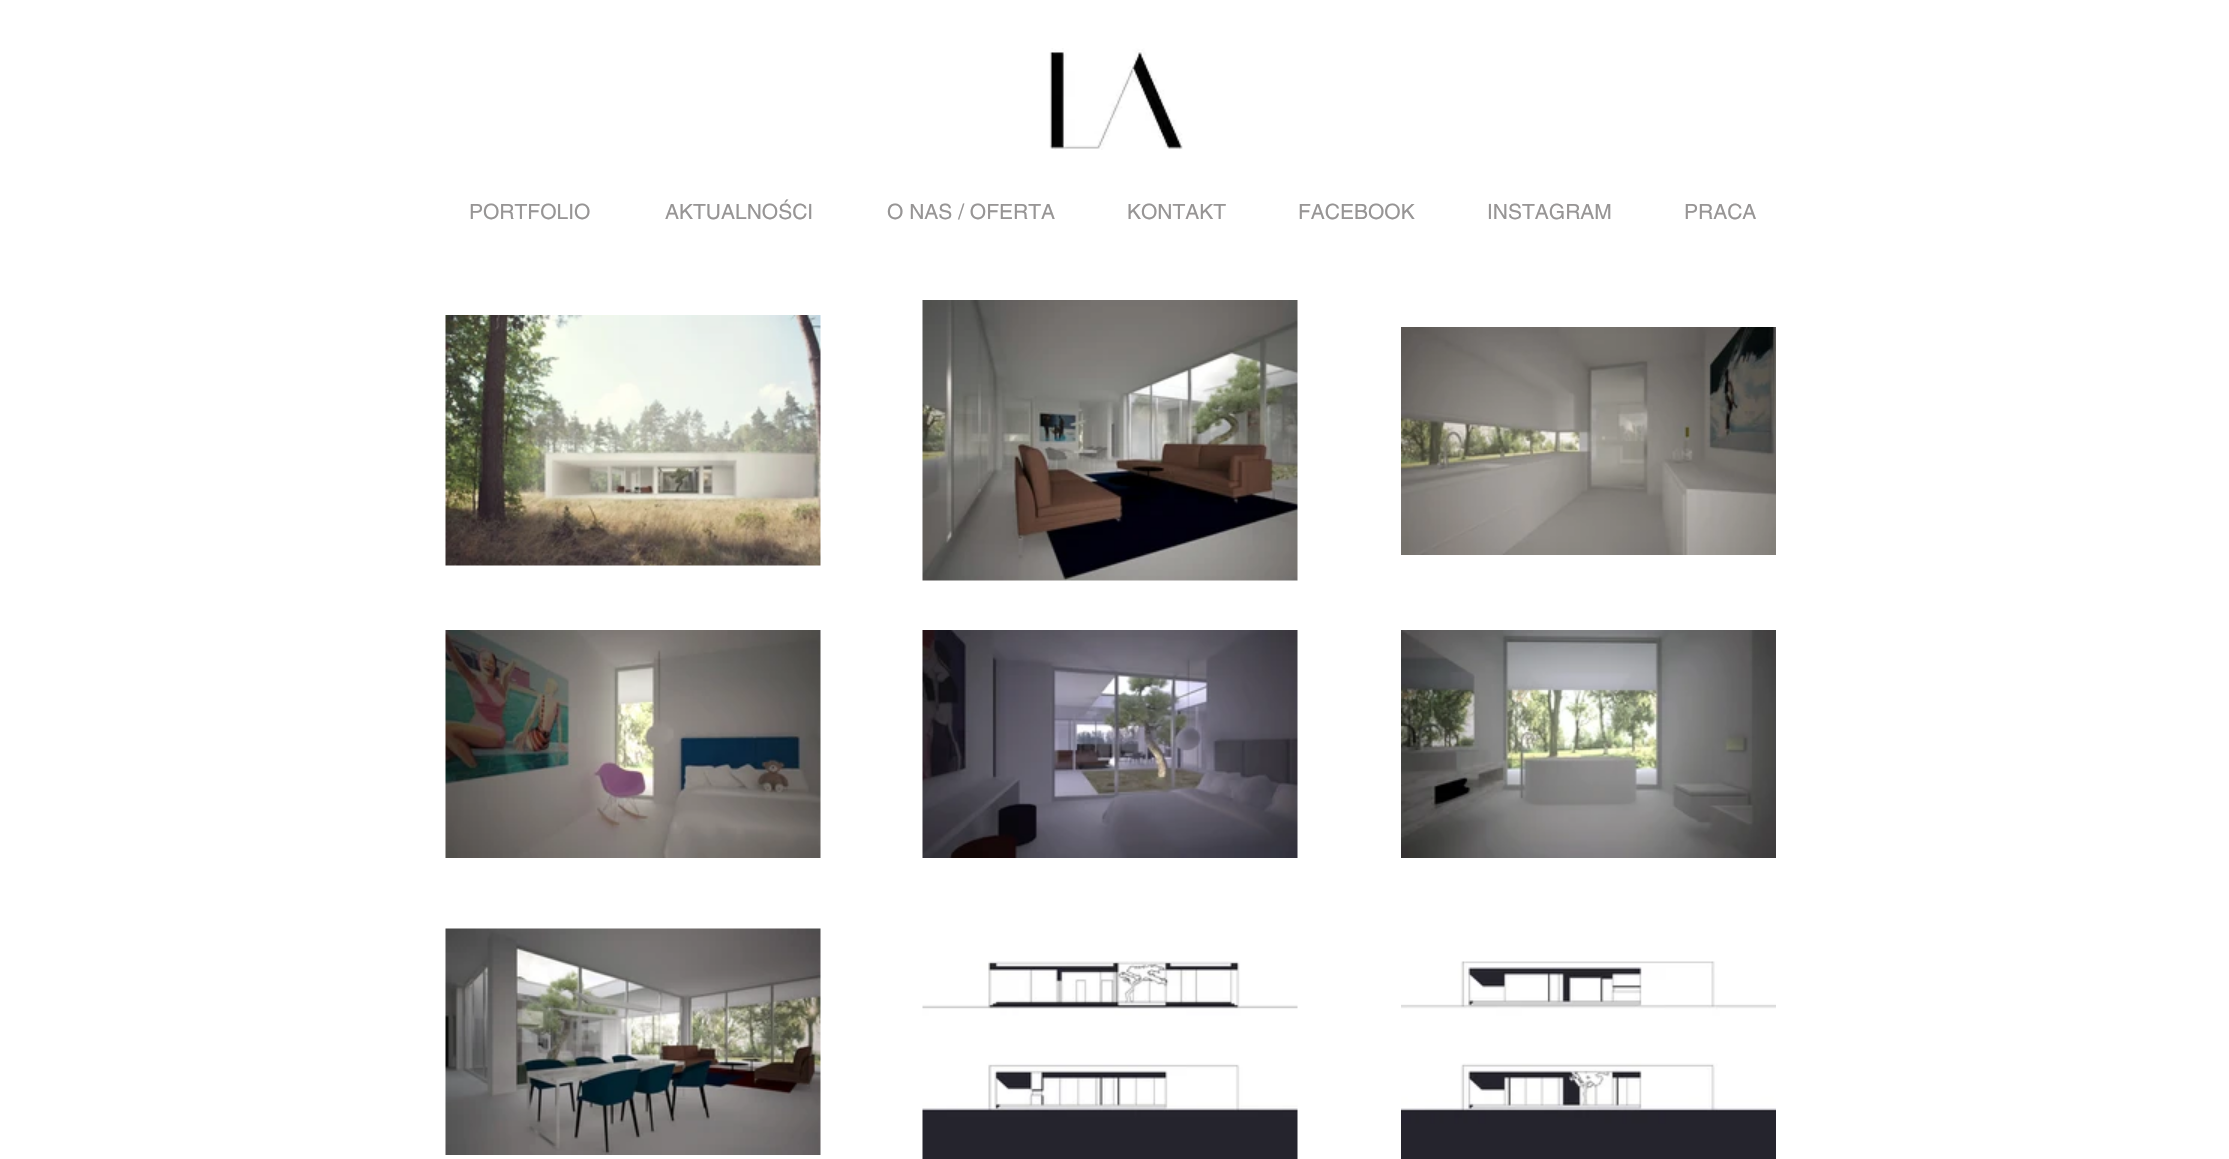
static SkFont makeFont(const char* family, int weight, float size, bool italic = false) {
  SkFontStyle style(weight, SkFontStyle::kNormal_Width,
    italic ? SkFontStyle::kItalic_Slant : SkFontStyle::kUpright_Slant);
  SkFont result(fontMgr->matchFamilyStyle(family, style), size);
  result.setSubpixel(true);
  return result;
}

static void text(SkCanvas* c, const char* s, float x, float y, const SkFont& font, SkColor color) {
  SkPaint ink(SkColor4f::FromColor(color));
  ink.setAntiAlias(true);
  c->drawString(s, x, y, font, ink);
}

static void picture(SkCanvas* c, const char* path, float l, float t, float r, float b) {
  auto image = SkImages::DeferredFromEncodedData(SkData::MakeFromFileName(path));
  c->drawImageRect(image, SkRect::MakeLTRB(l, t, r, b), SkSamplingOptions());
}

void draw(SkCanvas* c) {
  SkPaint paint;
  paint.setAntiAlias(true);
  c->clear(0xffffffff);
  picture(c, "img_01.png", 1049, 48, 1183, 150);
  SkFont face1 = makeFont("helvetica", 400, 21);
  text(c, "PORTFOLIO", 469, 219, face1, 0xff979595);
  text(c, "AKTUALNOŚCI", 665, 219, face1, 0xff979595);
  text(c, "O NAS / OFERTA", 887, 219, face1, 0xff979595);
  text(c, "KONTAKT", 1127, 219, face1, 0xff979595);
  text(c, "FACEBOOK", 1298, 219, face1, 0xff979595);
  text(c, "INSTAGRAM", 1487, 219, face1, 0xff979595);
  text(c, "PRACA", 1684, 219, face1, 0xff979595);
  picture(c, "img_02.png", 445, 315, 821, 566);
  picture(c, "img_03.png", 922, 300, 1298, 581);
  picture(c, "img_04.png", 1401, 327, 1776, 555);
  picture(c, "img_05.png", 445, 630, 821, 858);
  picture(c, "img_06.png", 922, 630, 1298, 858);
  picture(c, "img_07.png", 1401, 630, 1776, 858);
  picture(c, "img_08.png", 445, 928, 821, 1155);
  picture(c, "img_09.png", 922, 961, 1298, 1159);
  picture(c, "img_10.png", 1401, 961, 1776, 1159);
}
